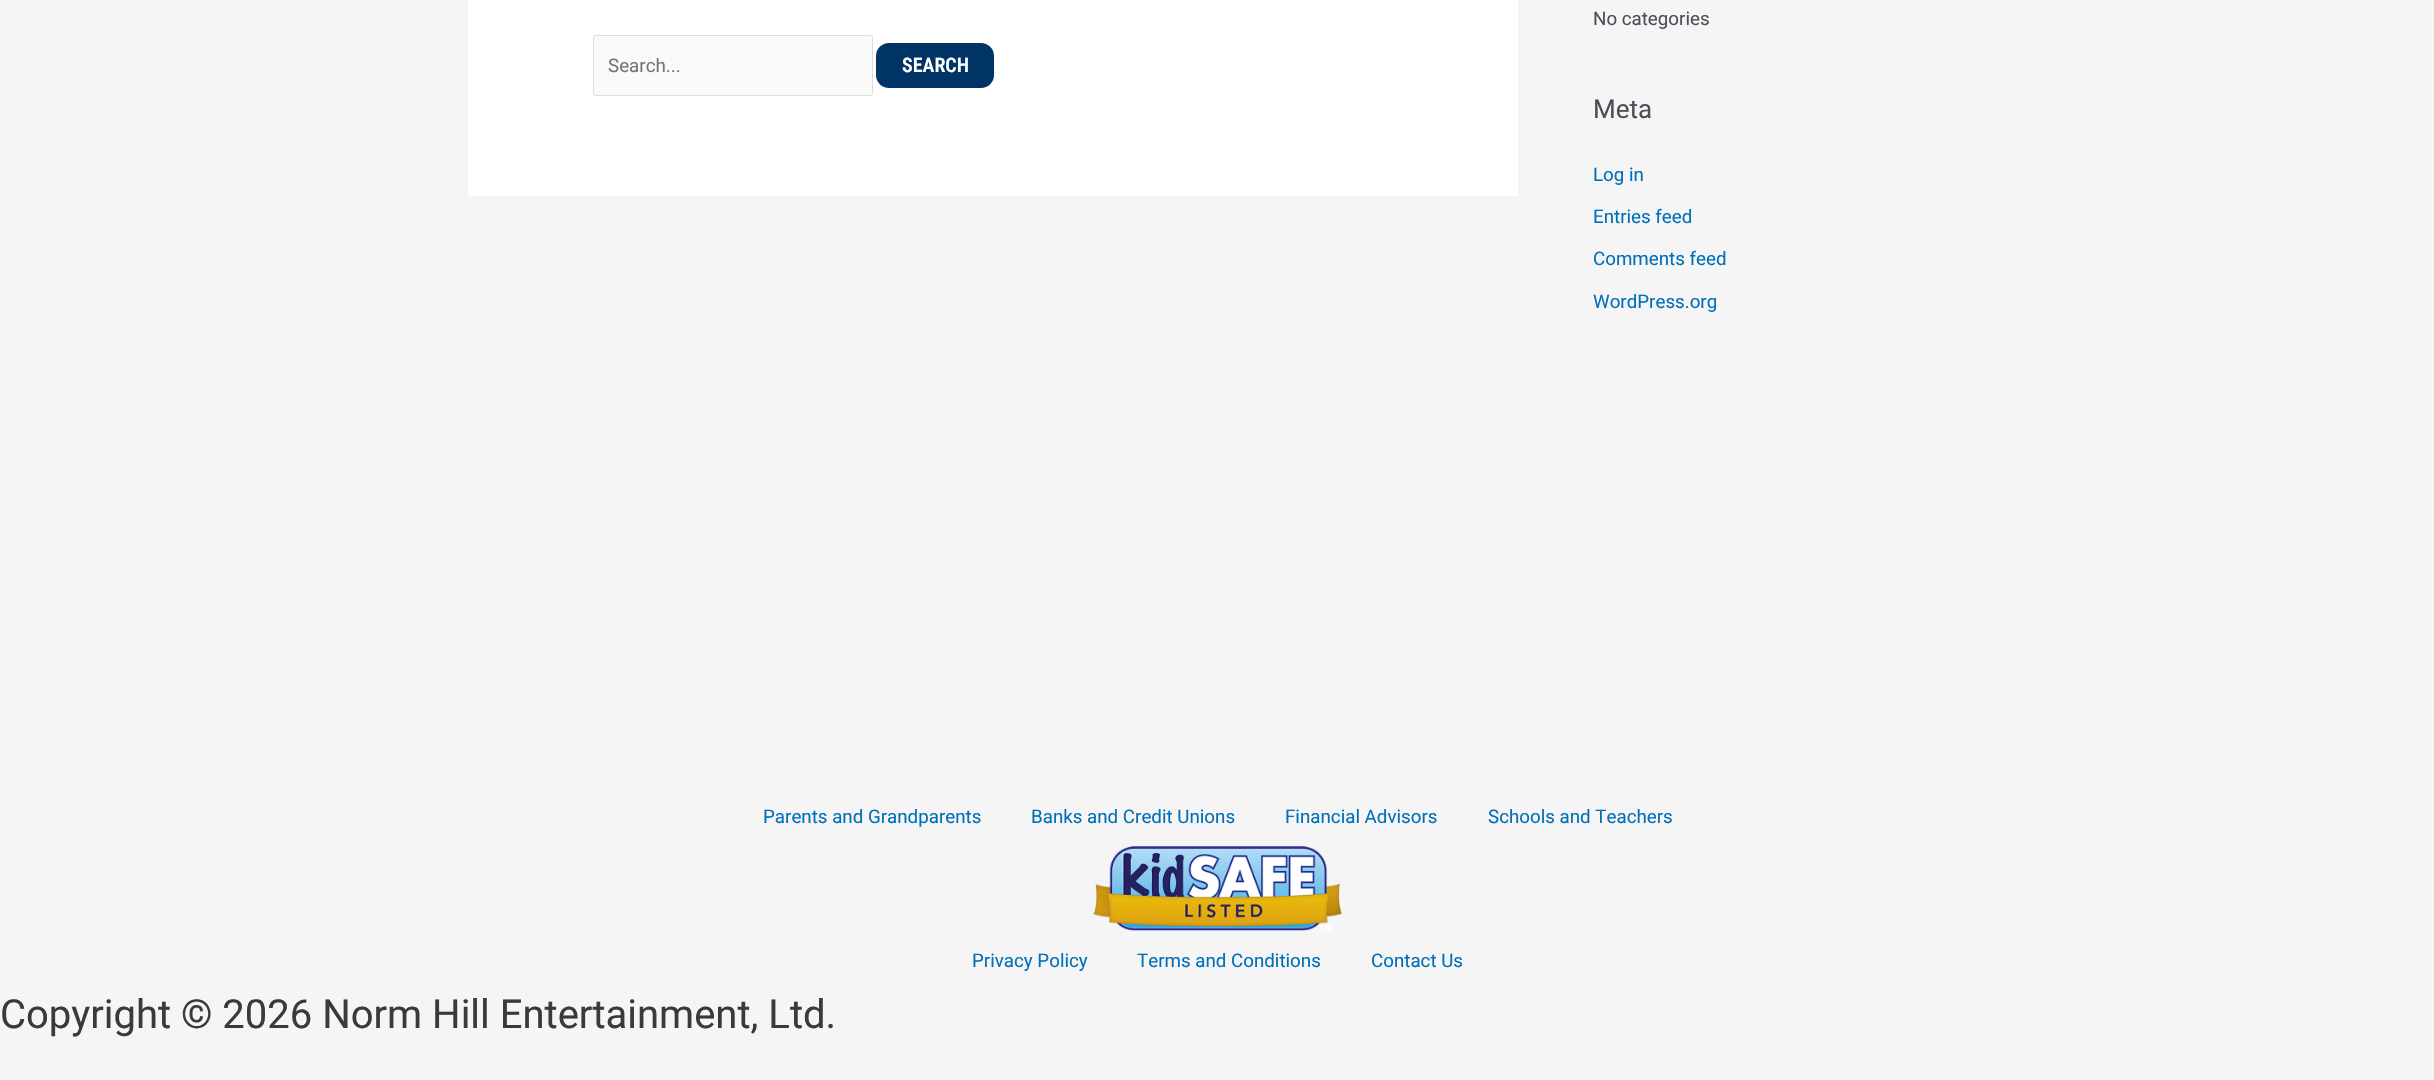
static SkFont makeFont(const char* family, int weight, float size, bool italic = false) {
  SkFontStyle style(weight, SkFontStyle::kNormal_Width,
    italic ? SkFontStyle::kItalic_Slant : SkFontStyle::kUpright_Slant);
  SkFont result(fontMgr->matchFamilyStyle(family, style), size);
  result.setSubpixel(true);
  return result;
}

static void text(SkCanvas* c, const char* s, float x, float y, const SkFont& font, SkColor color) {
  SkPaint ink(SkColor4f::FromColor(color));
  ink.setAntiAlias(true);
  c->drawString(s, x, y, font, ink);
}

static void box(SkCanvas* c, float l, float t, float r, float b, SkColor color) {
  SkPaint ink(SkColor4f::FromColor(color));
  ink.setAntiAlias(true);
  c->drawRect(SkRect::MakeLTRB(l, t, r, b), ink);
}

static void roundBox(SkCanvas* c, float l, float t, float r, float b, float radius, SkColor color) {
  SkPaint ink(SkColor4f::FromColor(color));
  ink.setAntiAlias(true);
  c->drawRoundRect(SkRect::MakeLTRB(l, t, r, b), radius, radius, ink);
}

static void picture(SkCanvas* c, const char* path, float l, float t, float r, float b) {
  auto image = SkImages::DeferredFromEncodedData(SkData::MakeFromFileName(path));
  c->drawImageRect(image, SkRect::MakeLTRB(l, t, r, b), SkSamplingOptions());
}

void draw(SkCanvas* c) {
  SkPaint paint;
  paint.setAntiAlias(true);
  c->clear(0xfff5f5f5);
  box(c, 468, 0, 1518, 196, 0xffffffff);
  paint.setColor(0xfffafafa);
  c->drawRoundRect(SkRect::MakeLTRB(593.5f, 35.5f, 872.5f, 95.5f), 2, 2, paint);
  paint.setStyle(SkPaint::kStroke_Style);
  paint.setStrokeWidth(1);
  paint.setColor(0xffdddddd);
  c->drawRoundRect(SkRect::MakeLTRB(593.5f, 35.5f, 872.5f, 95.5f), 2, 2, paint);
  SkFont face1 = makeFont("Roboto", 400, 18.75f);
  text(c, "Search...", 608, 72, face1, 0xff757575);
  roundBox(c, 876, 43, 994, 88, 13, 0xff003366);
  SkFont face2 = makeFont("Roboto Condensed", 600, 20);
  text(c, "SEARCH", 902, 72, face2, 0xffffffff);
  text(c, "No categories", 1593, 25, face1, 0xff4b4f58);
  SkFont face3 = makeFont("Roboto", 400, 26);
  text(c, "Meta", 1593, 118, face3, 0xff4b4f58);
  text(c, "Log in", 1593, 181, face1, 0xff0170b9);
  text(c, "Entries feed", 1593, 223, face1, 0xff0170b9);
  text(c, "Comments feed", 1593, 265, face1, 0xff0170b9);
  text(c, "WordPress.org", 1593, 308, face1, 0xff0170b9);
  text(c, "Parents and Grandparents", 763, 823, face1, 0xff0170b9);
  text(c, "Banks and Credit Unions", 1031, 823, face1, 0xff0170b9);
  text(c, "Financial Advisors", 1285, 823, face1, 0xff0170b9);
  text(c, "Schools and Teachers", 1488, 823, face1, 0xff0170b9);
  picture(c, "img_01.png", 1093, 846, 1342, 931);
  text(c, "Privacy Policy", 972, 967, face1, 0xff0170b9);
  text(c, "Terms and Conditions", 1137, 967, face1, 0xff0170b9);
  text(c, "Contact Us", 1371, 967, face1, 0xff0170b9);
  SkFont face4 = makeFont("Roboto", 400, 40);
  text(c, "Copyright © 2026 Norm Hill Entertainment, Ltd.", 0, 1028, face4, 0xff3a3a3a);
}
